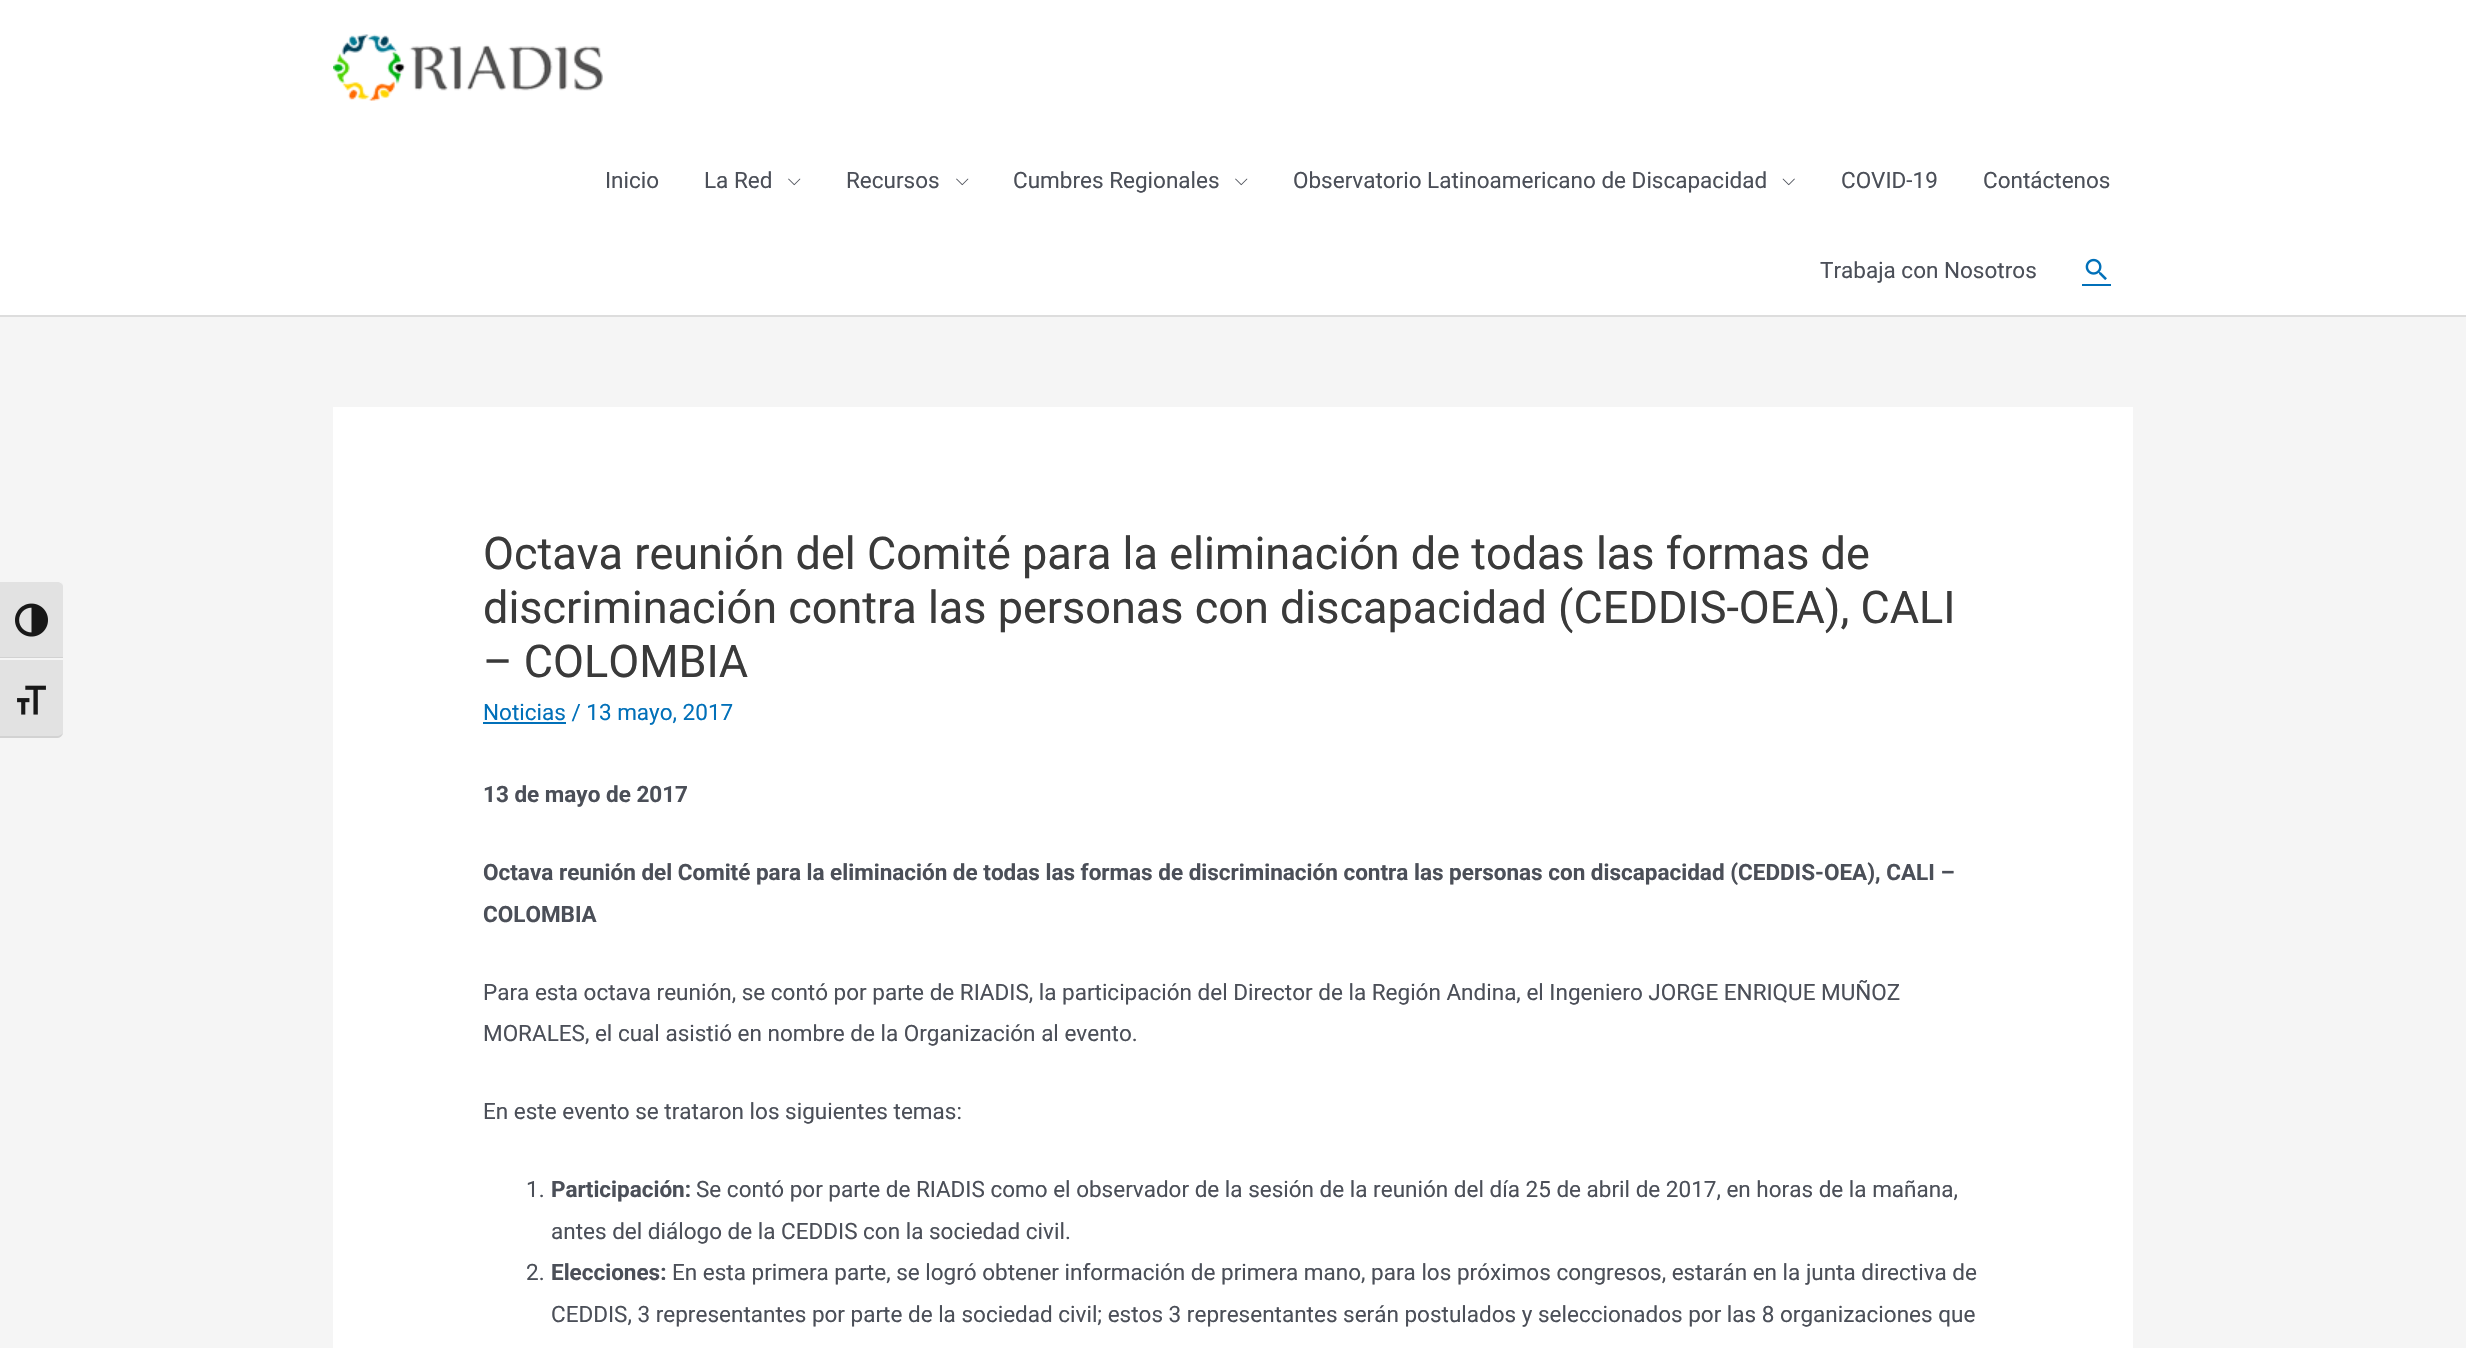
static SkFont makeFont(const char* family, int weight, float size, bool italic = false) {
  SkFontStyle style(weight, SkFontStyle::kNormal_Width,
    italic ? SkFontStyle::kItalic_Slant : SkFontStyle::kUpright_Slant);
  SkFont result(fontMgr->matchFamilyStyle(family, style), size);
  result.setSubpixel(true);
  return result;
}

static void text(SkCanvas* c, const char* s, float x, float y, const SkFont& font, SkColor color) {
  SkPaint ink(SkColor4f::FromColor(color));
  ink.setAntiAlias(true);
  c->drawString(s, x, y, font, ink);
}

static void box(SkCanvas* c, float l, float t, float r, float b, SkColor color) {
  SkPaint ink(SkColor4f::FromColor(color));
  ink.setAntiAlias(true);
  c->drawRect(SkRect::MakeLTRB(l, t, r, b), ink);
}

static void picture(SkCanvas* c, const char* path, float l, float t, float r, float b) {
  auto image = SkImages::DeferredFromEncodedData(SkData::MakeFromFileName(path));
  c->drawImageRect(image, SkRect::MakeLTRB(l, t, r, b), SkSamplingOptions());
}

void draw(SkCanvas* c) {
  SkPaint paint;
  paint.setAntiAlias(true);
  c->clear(0xfff5f5f5);
  paint.setColor(0xffe2e2e2);
  c->drawPath(SkPathBuilder().moveTo(0, 581).lineTo(57, 581).cubicTo(60.5f, 581, 63, 583.5f, 63, 587).lineTo(63, 659).lineTo(0, 659).close().detach(), paint);
  paint.setColor(0xfff5f5f5);
  c->drawPath(SkPathBuilder().moveTo(0, 582).lineTo(57, 582).cubicTo(60, 582, 63, 584, 63, 586).cubicTo(63, 584, 61, 581, 59, 580).lineTo(0, 580).close().detach(), paint);
  box(c, 0, 657, 63, 658, 0xffd2d2d2);
  picture(c, "img_01.png", 15, 603, 48, 637);
  paint.setColor(0xffe2e2e2);
  c->drawPath(SkPathBuilder().moveTo(0, 659).lineTo(63, 659).lineTo(63, 732).cubicTo(63, 735.5f, 60.5f, 738, 57, 738).lineTo(0, 738).close().detach(), paint);
  box(c, 0, 658, 63, 660, 0xfff5f5f5);
  paint.setColor(0xffd2d2d2);
  c->drawPath(SkPathBuilder().moveTo(0, 736).lineTo(0, 738).lineTo(57, 738).cubicTo(60, 738, 63, 735, 63, 732).cubicTo(63, 734, 60, 736, 57, 736).close().detach(), paint);
  picture(c, "img_02.png", 17, 685, 46, 715);
  box(c, 0, 0, 2466, 315, 0xffffffff);
  box(c, 0, 315, 2466, 317, 0xffdddddd);
  picture(c, "img_03.png", 333, 34, 603, 101);
  SkFont face1 = makeFont("Roboto", 400, 22.5f);
  text(c, "Inicio", 605, 188, face1, 0xff4b4f58);
  text(c, "La Red", 704, 188, face1, 0xff4b4f58);
  picture(c, "img_04.png", 788, 178, 801, 186);
  text(c, "Recursos", 846, 188, face1, 0xff4b4f58);
  picture(c, "img_04.png", 956, 178, 969, 186);
  text(c, "Cumbres Regionales", 1013, 188, face1, 0xff4b4f58);
  picture(c, "img_04.png", 1235, 178, 1248, 186);
  text(c, "Observatorio Latinoamericano de Discapacidad", 1293, 188, face1, 0xff4b4f58);
  picture(c, "img_05.png", 1782, 178, 1795, 186);
  text(c, "COVID-19", 1841, 188, face1, 0xff4b4f58);
  text(c, "Contáctenos", 1983, 188, face1, 0xff4b4f58);
  text(c, "Trabaja con Nosotros", 1820, 278, face1, 0xff4b4f58);
  box(c, 2082, 284, 2111, 286, 0xff0170b9);
  picture(c, "img_06.png", 2085, 258, 2107, 280);
  box(c, 333, 407, 2133, 1348, 0xffffffff);
  SkFont face2 = makeFont("Roboto", 400, 45);
  text(c, "Octava reunión del Comité para la eliminación de todas las formas de", 483, 569, face2, 0xff3a3a3a);
  text(c, "discriminación contra las personas con discapacidad (CEDDIS-OEA), CALI", 483, 623, face2, 0xff3a3a3a);
  text(c, "– COLOMBIA", 483, 677, face2, 0xff3a3a3a);
  box(c, 483, 722, 566, 724, 0xff0170b9);
  text(c, "Noticias / 13 mayo, 2017", 483, 720, face1, 0xff0170b9);
  SkFont face3 = makeFont("Roboto", 700, 22.5f);
  text(c, "13 de mayo de 2017", 483, 802, face3, 0xff4b4f58);
  text(c, "Octava reunión del Comité para la eliminación de todas las formas de discriminación contra las personas con discapacidad (CEDDIS-OEA), CALI –", 483, 880, face3, 0xff4b4f58);
  text(c, "COLOMBIA", 483, 922, face3, 0xff4b4f58);
  text(c, "Para esta octava reunión, se contó por parte de RIADIS, la participación del Director de la Región Andina, el Ingeniero JORGE ENRIQUE MUÑOZ", 483, 1000, face1, 0xff4b4f58);
  text(c, "MORALES, el cual asistió en nombre de la Organización al evento.", 483, 1041, face1, 0xff4b4f58);
  text(c, "En este evento se trataron los siguientes temas:", 483, 1119, face1, 0xff4b4f58);
  text(c, "1.", 526, 1197, face1, 0xff4b4f58);
  text(c, "Participación:", 551, 1197, face3, 0xff4b4f58);
  text(c, "Se contó por parte de RIADIS como el observador de la sesión de la reunión del día 25 de abril de 2017, en horas de la mañana,", 696, 1197, face1, 0xff4b4f58);
  text(c, "antes del diálogo de la CEDDIS con la sociedad civil.", 551, 1239, face1, 0xff4b4f58);
  text(c, "2.", 526, 1280, face1, 0xff4b4f58);
  text(c, "Elecciones:", 551, 1280, face3, 0xff4b4f58);
  text(c, "En esta primera parte, se logró obtener información de primera mano, para los próximos congresos, estarán en la junta directiva de", 672, 1280, face1, 0xff4b4f58);
  text(c, "CEDDIS, 3 representantes por parte de la sociedad civil; estos 3 representantes serán postulados y seleccionados por las 8 organizaciones que", 551, 1322, face1, 0xff4b4f58);
}
